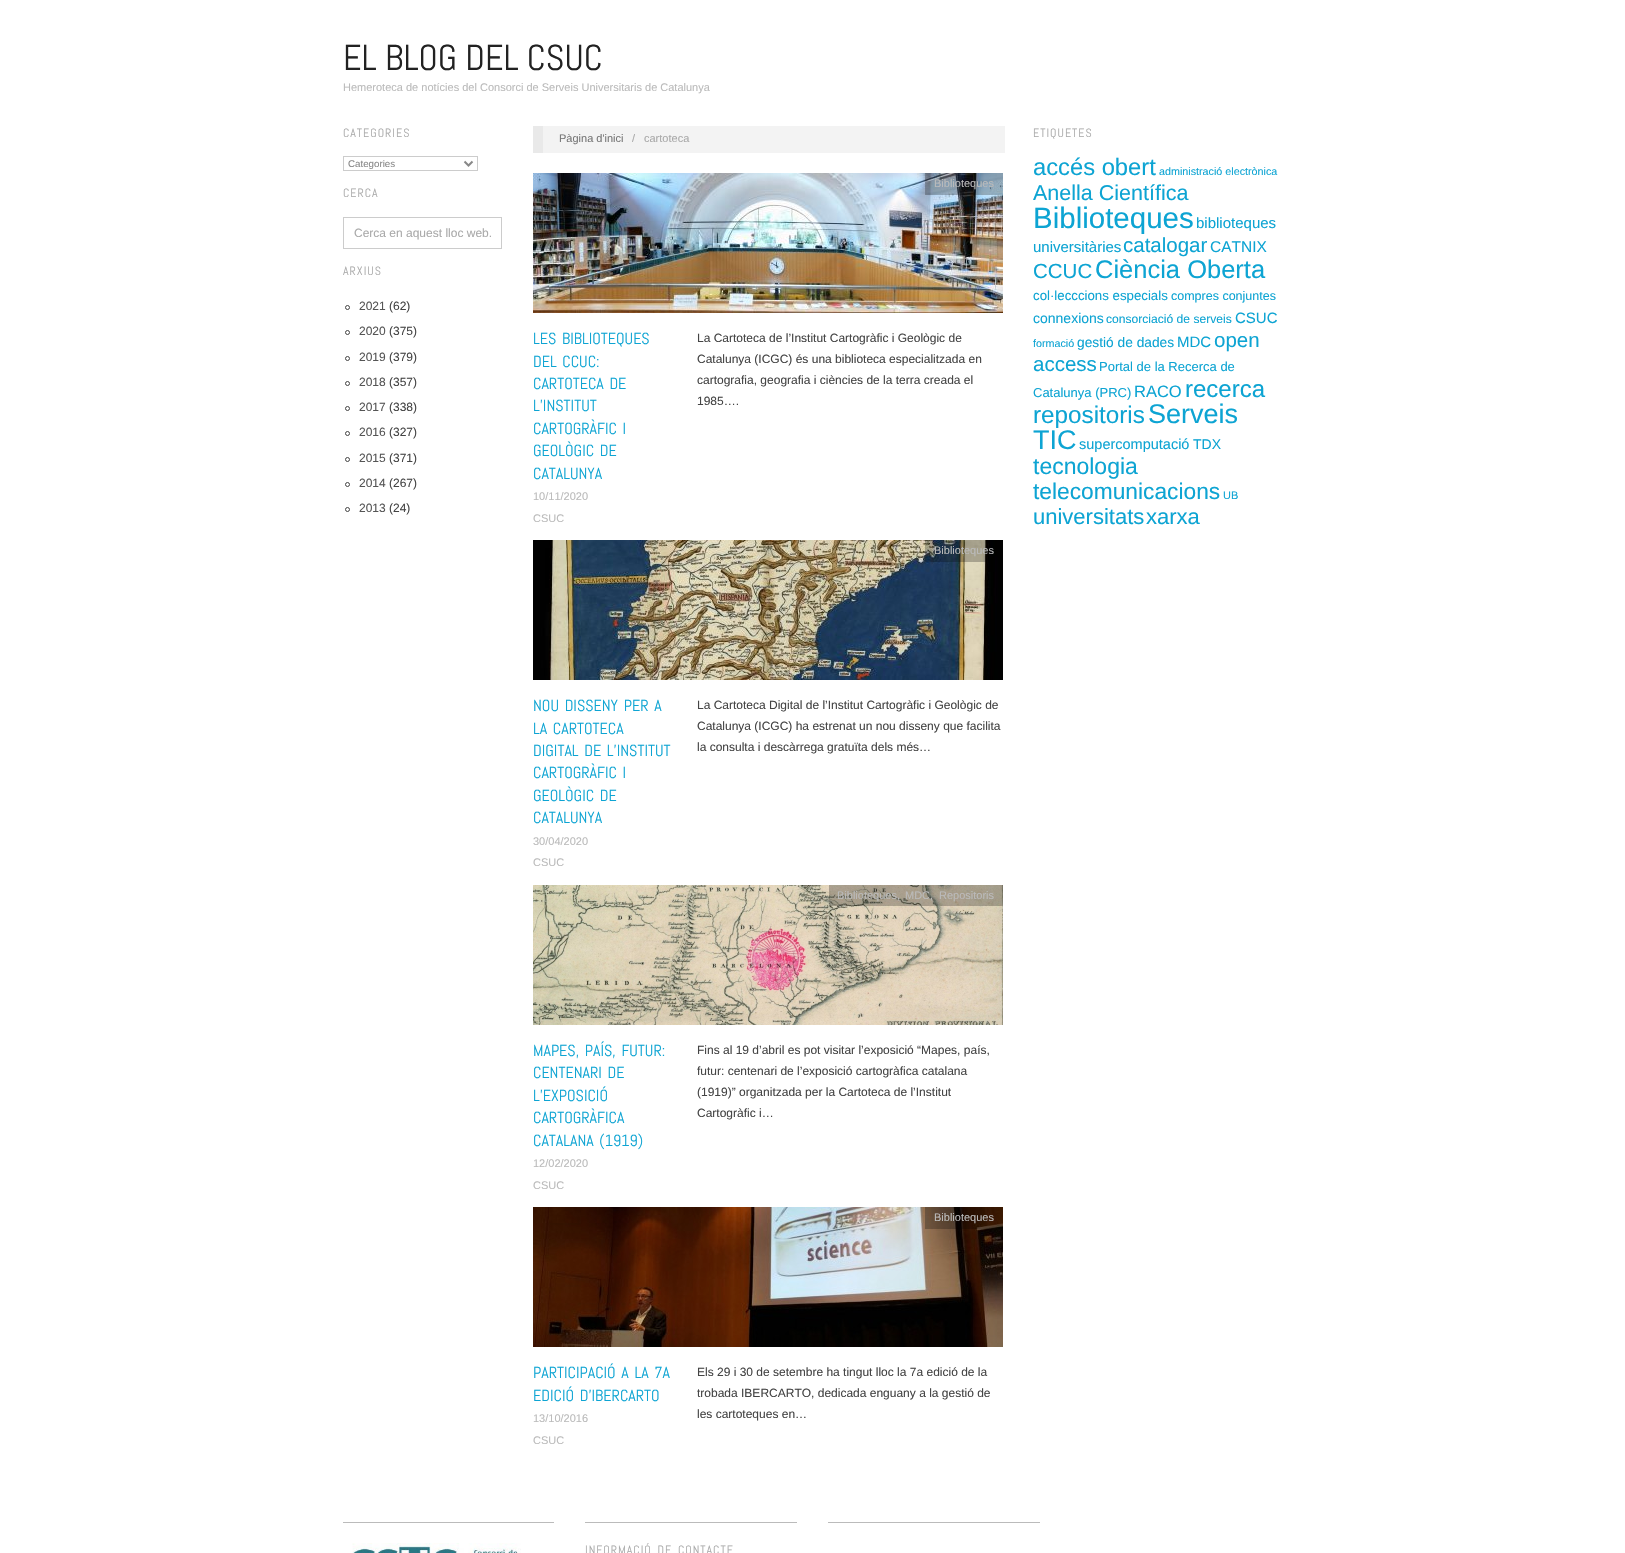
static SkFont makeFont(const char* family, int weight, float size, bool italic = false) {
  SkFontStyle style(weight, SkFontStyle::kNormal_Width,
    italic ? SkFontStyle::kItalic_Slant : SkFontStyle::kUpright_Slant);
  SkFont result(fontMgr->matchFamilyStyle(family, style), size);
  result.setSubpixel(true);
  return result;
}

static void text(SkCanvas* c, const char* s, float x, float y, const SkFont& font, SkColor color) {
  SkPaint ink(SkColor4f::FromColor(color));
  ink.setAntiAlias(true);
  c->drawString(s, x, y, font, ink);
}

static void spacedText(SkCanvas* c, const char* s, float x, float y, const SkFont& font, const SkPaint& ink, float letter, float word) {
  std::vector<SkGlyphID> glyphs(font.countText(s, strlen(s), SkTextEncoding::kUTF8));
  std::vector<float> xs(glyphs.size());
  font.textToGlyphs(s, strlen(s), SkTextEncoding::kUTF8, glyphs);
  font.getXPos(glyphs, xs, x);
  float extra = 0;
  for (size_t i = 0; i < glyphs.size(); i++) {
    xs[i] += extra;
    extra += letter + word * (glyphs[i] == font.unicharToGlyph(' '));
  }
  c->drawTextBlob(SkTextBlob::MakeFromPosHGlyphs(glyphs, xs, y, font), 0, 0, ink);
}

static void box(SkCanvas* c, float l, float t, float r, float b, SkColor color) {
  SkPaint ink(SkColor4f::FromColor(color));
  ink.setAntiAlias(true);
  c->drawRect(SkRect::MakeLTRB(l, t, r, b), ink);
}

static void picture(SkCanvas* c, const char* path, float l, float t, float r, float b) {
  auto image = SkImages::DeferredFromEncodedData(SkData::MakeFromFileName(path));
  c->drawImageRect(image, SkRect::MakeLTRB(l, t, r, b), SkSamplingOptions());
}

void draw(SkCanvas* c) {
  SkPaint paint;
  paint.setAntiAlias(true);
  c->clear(0xffffffff);
  SkFont face1 = makeFont("Abel", 400, 36);
  text(c, "EL BLOG DEL CSUC", 343, 70, face1, 0xff222222);
  SkFont face2 = makeFont("Liberation Sans", 400, 11);
  text(c, "Hemeroteca de notícies del Consorci de Serveis Universitaris de Catalunya", 343, 91, face2, 0xffbbbbbb);
  SkFont face3 = makeFont("Abel", 400, 12);
  paint.setColor(0xffaaaaaa);
  spacedText(c, "CATEGORIES", 343, 137, face3, paint, 1, 0);
  paint.setStyle(SkPaint::kStroke_Style);
  paint.setStrokeWidth(1);
  paint.setColor(0xffcccccc);
  c->drawRect(SkRect::MakeLTRB(343.5f, 156.5f, 477.5f, 170.5f), paint);
  paint.setStrokeWidth(2);
  paint.setColor(0xff888888);
  c->drawPath(SkPathBuilder().moveTo(464.5f, 161.5f).lineTo(468.5f, 165.5f).lineTo(472.5f, 161.5f).detach(), paint);
  SkFont face4 = makeFont("Liberation Sans", 400, 9.75f);
  text(c, "Categories", 348, 167, face4, 0xff888888);
  paint.setStyle(SkPaint::kFill_Style);
  paint.setColor(0xffaaaaaa);
  spacedText(c, "CERCA", 343, 197, face3, paint, 1, 0);
  paint.setStyle(SkPaint::kStroke_Style);
  paint.setStrokeWidth(1);
  paint.setColor(0xffcccccc);
  c->drawRect(SkRect::MakeLTRB(343.5f, 217.5f, 501.5f, 248.5f), paint);
  SkFont face5 = makeFont("Liberation Sans", 400, 12);
  text(c, "Cerca en aquest lloc web.", 354, 237, face5, 0xffaaaaaa);
  paint.setStyle(SkPaint::kFill_Style);
  paint.setColor(0xffaaaaaa);
  spacedText(c, "ARXIUS", 343, 275, face3, paint, 1, 0);
  paint.setStyle(SkPaint::kStroke_Style);
  paint.setColor(0xff444444);
  c->drawCircle(347.5f, 307.5f, 2, paint);
  text(c, "2021", 359, 310, face5, 0xff555555);
  text(c, "(62)", 389, 310, face5, 0xff444444);
  c->drawCircle(347.5f, 332.5f, 2, paint);
  text(c, "2020", 359, 335, face5, 0xff555555);
  text(c, "(375)", 389, 335, face5, 0xff444444);
  c->drawCircle(347.5f, 358.5f, 2, paint);
  text(c, "2019", 359, 361, face5, 0xff555555);
  text(c, "(379)", 389, 361, face5, 0xff444444);
  c->drawCircle(347.5f, 383.5f, 2, paint);
  text(c, "2018", 359, 386, face5, 0xff555555);
  text(c, "(357)", 389, 386, face5, 0xff444444);
  c->drawCircle(347.5f, 408.5f, 2, paint);
  text(c, "2017", 359, 411, face5, 0xff555555);
  text(c, "(338)", 389, 411, face5, 0xff444444);
  c->drawCircle(347.5f, 433.5f, 2, paint);
  text(c, "2016", 359, 436, face5, 0xff555555);
  text(c, "(327)", 389, 436, face5, 0xff444444);
  c->drawCircle(347.5f, 459.5f, 2, paint);
  text(c, "2015", 359, 462, face5, 0xff555555);
  text(c, "(371)", 389, 462, face5, 0xff444444);
  c->drawCircle(347.5f, 484.5f, 2, paint);
  text(c, "2014", 359, 487, face5, 0xff555555);
  text(c, "(267)", 389, 487, face5, 0xff444444);
  c->drawCircle(347.5f, 509.5f, 2, paint);
  text(c, "2013", 359, 512, face5, 0xff555555);
  text(c, "(24)", 389, 512, face5, 0xff444444);
  box(c, 543, 126, 1005, 153, 0xfff3f3f3);
  box(c, 533, 126, 543, 153, 0xffe9e9e9);
  text(c, "Pàgina d'inici", 559, 142, face2, 0xff777777);
  text(c, "/", 632, 142, face2, 0xffaaaaaa);
  text(c, "cartoteca", 644, 142, face2, 0xffaaaaaa);
  picture(c, "img_01.png", 533, 173, 1003, 313);
  box(c, 925, 173, 1003, 195, 0x40000000);
  text(c, "Biblioteques", 934, 187, face2, 0xffbbbbbb);
  SkFont face6 = makeFont("Abel", 400, 16);
  paint.setStyle(SkPaint::kFill_Style);
  paint.setColor(0xff0da4d3);
  spacedText(c, "LES BIBLIOTEQUES", 533, 344, face6, paint, 0, 2);
  spacedText(c, "DEL CCUC:", 533, 367, face6, paint, 0, 2);
  spacedText(c, "CARTOTECA DE", 533, 389, face6, paint, 0, 2);
  text(c, "L’INSTITUT", 533, 411, face6, 0xff0da4d3);
  spacedText(c, "CARTOGRÀFIC I", 533, 434, face6, paint, 0, 2);
  spacedText(c, "GEOLÒGIC DE", 533, 456, face6, paint, 0, 2);
  text(c, "CATALUNYA", 533, 479, face6, 0xff0da4d3);
  text(c, "10/11/2020", 533, 500, face2, 0xffbbbbbb);
  text(c, "CSUC", 533, 522, face2, 0xffbbbbbb);
  text(c, "La Cartoteca de l’Institut Cartogràfic i Geològic de", 697, 342, face5, 0xff444444);
  text(c, "Catalunya (ICGC) és una biblioteca especialitzada en", 697, 363, face5, 0xff444444);
  text(c, "cartografia, geografia i ciències de la terra creada el", 697, 384, face5, 0xff444444);
  text(c, "1985….", 697, 405, face5, 0xff444444);
  picture(c, "img_02.png", 533, 540, 1003, 680);
  box(c, 925, 540, 987, 562, 0x40000000);
  text(c, "Biblioteques", 934, 554, face2, 0xffbbbbbb);
  spacedText(c, "NOU DISSENY PER A", 533, 711, face6, paint, 0, 2);
  spacedText(c, "LA CARTOTECA", 533, 734, face6, paint, 0, 2);
  spacedText(c, "DIGITAL DE L’INSTITUT", 533, 756, face6, paint, 0, 2);
  spacedText(c, "CARTOGRÀFIC I", 533, 778, face6, paint, 0, 2);
  spacedText(c, "GEOLÒGIC DE", 533, 801, face6, paint, 0, 2);
  text(c, "CATALUNYA", 533, 823, face6, 0xff0da4d3);
  text(c, "30/04/2020", 533, 845, face2, 0xffbbbbbb);
  text(c, "CSUC", 533, 866, face2, 0xffbbbbbb);
  text(c, "La Cartoteca Digital de l’Institut Cartogràfic i Geològic de", 697, 709, face5, 0xff444444);
  text(c, "Catalunya (ICGC) ha estrenat un nou disseny que facilita", 697, 730, face5, 0xff444444);
  text(c, "la consulta i descàrrega gratuïta dels més…", 697, 751, face5, 0xff444444);
  picture(c, "img_03.png", 533, 885, 1003, 1025);
  box(c, 829, 885, 1003, 906, 0x40000000);
  text(c, "Biblioteques,", 837, 899, face2, 0xffbbbbbb);
  text(c, "MDC,", 905, 899, face2, 0xffbbbbbb);
  text(c, "Repositoris", 939, 899, face2, 0xffbbbbbb);
  spacedText(c, "MAPES, PAÍS, FUTUR:", 533, 1056, face6, paint, 0, 2);
  spacedText(c, "CENTENARI DE", 533, 1078, face6, paint, 0, 2);
  text(c, "L’EXPOSICIÓ", 533, 1101, face6, 0xff0da4d3);
  text(c, "CARTOGRÀFICA", 533, 1123, face6, 0xff0da4d3);
  spacedText(c, "CATALANA (1919)", 533, 1146, face6, paint, 0, 2);
  text(c, "12/02/2020", 533, 1167, face2, 0xffbbbbbb);
  text(c, "CSUC", 533, 1189, face2, 0xffbbbbbb);
  text(c, "Fins al 19 d’abril es pot visitar l’exposició “Mapes, país,", 697, 1054, face5, 0xff444444);
  text(c, "futur: centenari de l’exposició cartogràfica catalana", 697, 1075, face5, 0xff444444);
  text(c, "(1919)” organitzada per la Cartoteca de l’Institut", 697, 1096, face5, 0xff444444);
  text(c, "Cartogràfic i…", 697, 1117, face5, 0xff444444);
  picture(c, "img_04.png", 533, 1207, 1003, 1347);
  box(c, 925, 1207, 1003, 1229, 0x40000000);
  text(c, "Biblioteques", 934, 1221, face2, 0xffbbbbbb);
  spacedText(c, "PARTICIPACIÓ A LA 7A", 533, 1378, face6, paint, 0, 2);
  spacedText(c, "EDICIÓ D’IBERCARTO", 533, 1401, face6, paint, 0, 2);
  text(c, "13/10/2016", 533, 1422, face2, 0xffbbbbbb);
  text(c, "CSUC", 533, 1444, face2, 0xffbbbbbb);
  text(c, "Els 29 i 30 de setembre ha tingut lloc la 7a edició de la", 697, 1376, face5, 0xff444444);
  text(c, "trobada IBERCARTO, dedicada enguany a la gestió de", 697, 1397, face5, 0xff444444);
  text(c, "les cartoteques en…", 697, 1418, face5, 0xff444444);
  paint.setColor(0xffaaaaaa);
  spacedText(c, "ETIQUETES", 1033, 137, face3, paint, 1, 0);
  SkFont face7 = makeFont("Liberation Sans", 400, 23.75f);
  text(c, "accés obert", 1033, 175, face7, 0xff0da4d3);
  SkFont face8 = makeFont("Liberation Sans", 400, 10.75f);
  text(c, "administració electrònica", 1159, 175, face8, 0xff0da4d3);
  SkFont face9 = makeFont("Liberation Sans", 400, 21.5f);
  text(c, "Anella Científica", 1033, 200, face9, 0xff0da4d3);
  SkFont face10 = makeFont("Liberation Sans", 400, 29.5f);
  text(c, "Biblioteques", 1033, 228, face10, 0xff0da4d3);
  SkFont face11 = makeFont("Liberation Sans", 400, 15);
  text(c, "biblioteques", 1196, 228, face11, 0xff0da4d3);
  text(c, "universitàries", 1033, 252, face11, 0xff0da4d3);
  SkFont face12 = makeFont("Liberation Sans", 400, 20.5f);
  text(c, "catalogar", 1123, 252, face12, 0xff0da4d3);
  SkFont face13 = makeFont("Liberation Sans", 400, 15.5f);
  text(c, "CATNIX", 1210, 252, face13, 0xff0da4d3);
  text(c, "CCUC", 1033, 278, face12, 0xff0da4d3);
  SkFont face14 = makeFont("Liberation Sans", 400, 25.5f);
  text(c, "Ciència Oberta", 1095, 278, face14, 0xff0da4d3);
  SkFont face15 = makeFont("Liberation Sans", 400, 13.25f);
  text(c, "col·lecccions especials", 1033, 300, face15, 0xff0da4d3);
  SkFont face16 = makeFont("Liberation Sans", 400, 12.5f);
  text(c, "compres conjuntes", 1171, 300, face16, 0xff0da4d3);
  SkFont face17 = makeFont("Liberation Sans", 400, 14);
  text(c, "connexions", 1033, 323, face17, 0xff0da4d3);
  SkFont face18 = makeFont("Liberation Sans", 400, 12.1f);
  text(c, "consorciació de serveis", 1106, 323, face18, 0xff0da4d3);
  text(c, "CSUC", 1235, 323, face11, 0xff0da4d3);
  text(c, "formació", 1033, 347, face8, 0xff0da4d3);
  SkFont face19 = makeFont("Liberation Sans", 400, 13.75f);
  text(c, "gestió de dades", 1077, 347, face19, 0xff0da4d3);
  text(c, "MDC", 1177, 347, face11, 0xff0da4d3);
  text(c, "open", 1214, 347, face12, 0xff0da4d3);
  text(c, "access", 1033, 371, face12, 0xff0da4d3);
  SkFont face20 = makeFont("Liberation Sans", 400, 13);
  text(c, "Portal de la Recerca de", 1099, 371, face20, 0xff0da4d3);
  text(c, "Catalunya (PRC)", 1033, 397, face20, 0xff0da4d3);
  SkFont face21 = makeFont("Liberation Sans", 400, 16.5f);
  text(c, "RACO", 1134, 397, face21, 0xff0da4d3);
  SkFont face22 = makeFont("Liberation Sans", 400, 24);
  text(c, "recerca", 1185, 397, face22, 0xff0da4d3);
  SkFont face23 = makeFont("Liberation Sans", 400, 24.25f);
  text(c, "repositoris", 1033, 423, face23, 0xff0da4d3);
  SkFont face24 = makeFont("Liberation Sans", 400, 27);
  text(c, "Serveis", 1148, 423, face24, 0xff0da4d3);
  text(c, "TIC", 1033, 449, face24, 0xff0da4d3);
  SkFont face25 = makeFont("Liberation Sans", 400, 14.5f);
  text(c, "supercomputació", 1079, 449, face25, 0xff0da4d3);
  text(c, "TDX", 1193, 449, face17, 0xff0da4d3);
  SkFont face26 = makeFont("Liberation Sans", 400, 23);
  text(c, "tecnologia", 1033, 474, face26, 0xff0da4d3);
  SkFont face27 = makeFont("Liberation Sans", 400, 22.75f);
  text(c, "telecomunicacions", 1033, 499, face27, 0xff0da4d3);
  text(c, "UB", 1223, 499, face2, 0xff0da4d3);
  SkFont face28 = makeFont("Liberation Sans", 400, 22);
  text(c, "universitats", 1033, 524, face28, 0xff0da4d3);
  text(c, "xarxa", 1146, 524, face28, 0xff0da4d3);
  box(c, 343, 1522, 554, 1523, 0xffbbbbbb);
  picture(c, "img_05.png", 352, 1543, 521, 1553);
  box(c, 828, 1522, 1040, 1523, 0xffbbbbbb);
  box(c, 585, 1522, 797, 1523, 0xffbbbbbb);
  spacedText(c, "INFORMACIÓ DE CONTACTE", 585, 1554, face3, paint, 1, 2);
}
